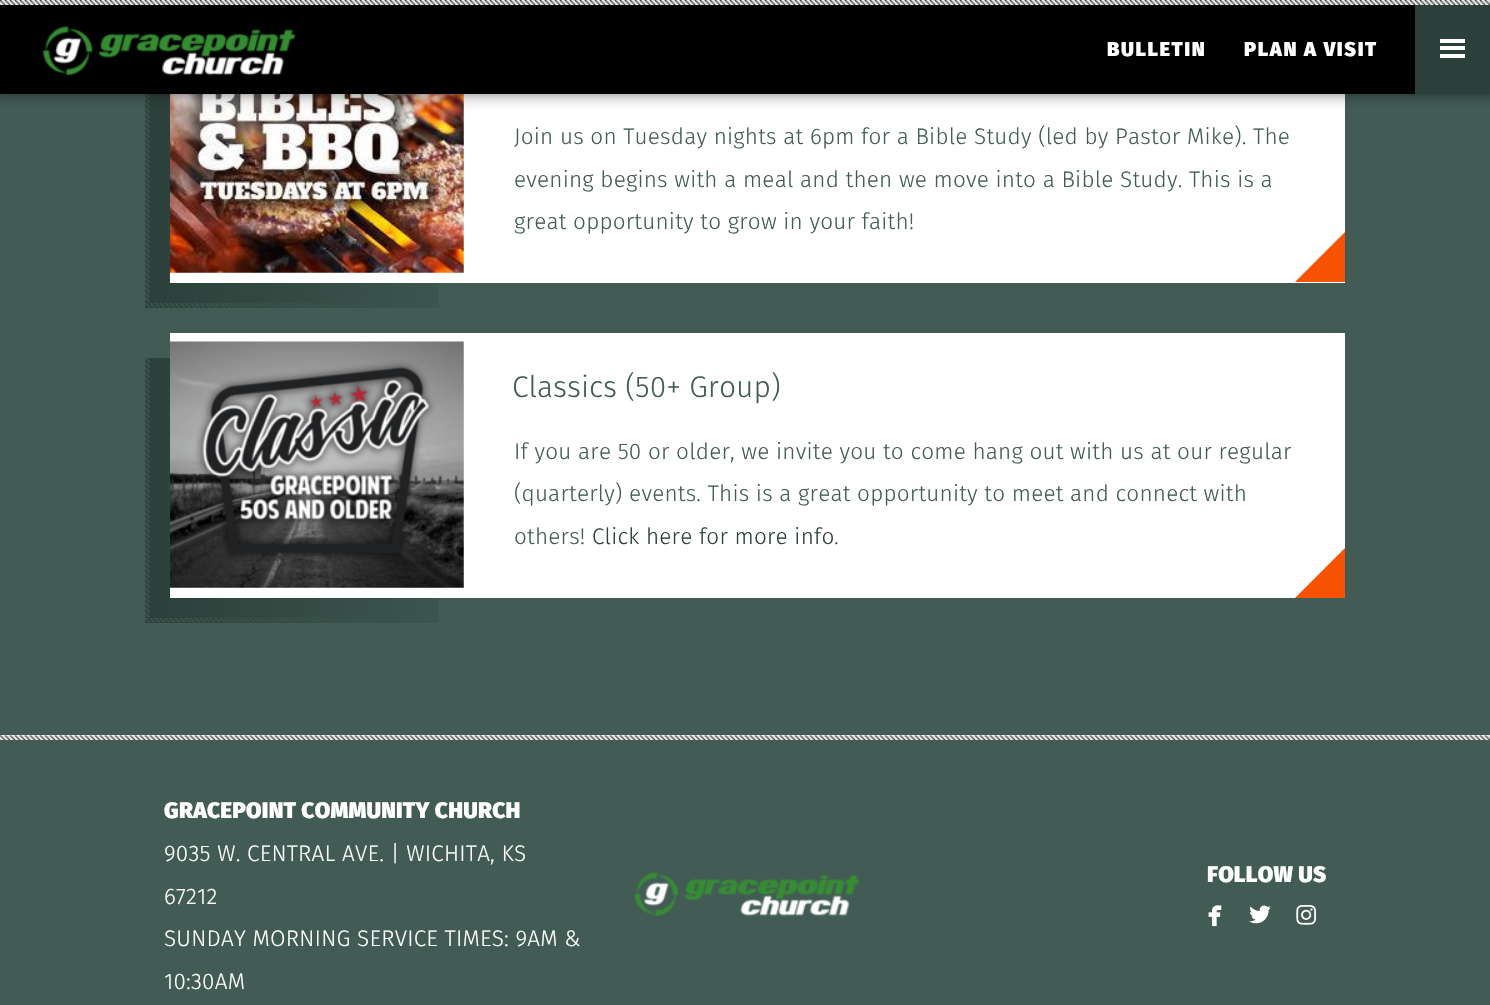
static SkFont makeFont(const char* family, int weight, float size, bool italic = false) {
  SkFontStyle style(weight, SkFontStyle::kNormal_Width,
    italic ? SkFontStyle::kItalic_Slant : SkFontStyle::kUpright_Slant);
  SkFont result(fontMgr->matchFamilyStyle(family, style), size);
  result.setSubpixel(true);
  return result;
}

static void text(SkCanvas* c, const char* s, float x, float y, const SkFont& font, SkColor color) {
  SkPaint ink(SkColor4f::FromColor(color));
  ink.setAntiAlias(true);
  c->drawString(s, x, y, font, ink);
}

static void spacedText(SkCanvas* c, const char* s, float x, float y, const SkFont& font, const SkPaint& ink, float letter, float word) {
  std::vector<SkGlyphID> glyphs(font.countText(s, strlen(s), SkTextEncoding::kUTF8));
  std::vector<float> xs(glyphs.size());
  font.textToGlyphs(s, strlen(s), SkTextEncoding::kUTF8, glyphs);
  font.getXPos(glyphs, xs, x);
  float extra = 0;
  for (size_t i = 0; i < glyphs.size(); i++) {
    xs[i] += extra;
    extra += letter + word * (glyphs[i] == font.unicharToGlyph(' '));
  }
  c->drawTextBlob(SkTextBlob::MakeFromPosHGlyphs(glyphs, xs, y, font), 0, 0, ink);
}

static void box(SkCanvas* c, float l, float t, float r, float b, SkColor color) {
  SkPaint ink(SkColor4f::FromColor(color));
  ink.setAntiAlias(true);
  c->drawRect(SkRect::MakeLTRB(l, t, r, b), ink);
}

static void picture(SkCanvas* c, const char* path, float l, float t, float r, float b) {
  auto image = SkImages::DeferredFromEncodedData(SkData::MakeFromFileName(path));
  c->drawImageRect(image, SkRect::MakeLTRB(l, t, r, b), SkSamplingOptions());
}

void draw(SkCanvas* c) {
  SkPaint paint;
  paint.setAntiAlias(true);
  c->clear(0xff425c55);
  {
    const SkColor colors[] = {0xff2b403a, 0xff3c554e};
    const float stops[] = {0, 1};
    const SkPoint ends[] = {{145, 175}, {439, 175}};
    paint.setShader(SkGradientShader::MakeLinear(ends, colors, stops, 2, SkTileMode::kClamp));
    paint.setAlpha(255);
  }
  c->drawRect(SkRect::MakeLTRB(145, 94, 439, 308), paint);
  picture(c, "img_03.png", 145, 94, 150, 303);
  box(c, 170, 94, 1345, 283, 0xffffffff);
  picture(c, "img_05.png", 170, 94, 464, 273);
  paint.setShader(nullptr);
  paint.setColor(0xff000000);
  paint.setMaskFilter(SkMaskFilter::MakeBlur(kNormal_SkBlurStyle, 9.5f));
  c->drawRect(SkRect::MakeLTRB(-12, -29, 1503, 88), paint);
  paint.setMaskFilter(nullptr);
  box(c, 0, 5, 1415, 94, 0xff000000);
  box(c, 0, 0, 1490, 5, 0xffffffff);
  picture(c, "img_01.png", 0, 0, 1490, 5);
  picture(c, "img_02.png", 42, 26, 296, 76);
  SkFont face1 = makeFont("Fira Sans", 900, 20);
  paint.setColor(0xffffffff);
  spacedText(c, "BULLETIN", 1107, 56, face1, paint, 1.6f, 0);
  spacedText(c, "PLAN A VISIT", 1244, 56, face1, paint, 1.6f, 0);
  picture(c, "img_04.png", 145, 303, 376, 308);
  SkFont face2 = makeFont("Fira Sans", 300, 22.5f);
  paint.setColor(0xff425c55);
  spacedText(c, "Join us on Tuesday nights at 6pm for a Bible Study (led by Pastor Mike). The", 514, 144, face2, paint, 0.22f, 0);
  spacedText(c, "evening begins with a meal and then we move into a Bible Study. This is a", 514, 187, face2, paint, 0.22f, 0);
  spacedText(c, "great opportunity to grow in your faith!", 514, 229, face2, paint, 0.22f, 0);
  paint.setColor(0xfff75200);
  c->drawPath(SkPathBuilder().moveTo(1345, 282).lineTo(1295, 282).lineTo(1345, 232).close().detach(), paint);
  {
    const SkColor colors[] = {0xff2b403a, 0xff3c554e};
    const float stops[] = {0, 1};
    const SkPoint ends[] = {{145, 490}, {439, 490}};
    paint.setShader(SkGradientShader::MakeLinear(ends, colors, stops, 2, SkTileMode::kClamp));
    paint.setAlpha(255);
  }
  c->drawRect(SkRect::MakeLTRB(145, 358, 439, 623), paint);
  picture(c, "img_06.png", 145, 358, 150, 618);
  picture(c, "img_04.png", 145, 618, 376, 623);
  box(c, 170, 333, 1345, 598, 0xffffffff);
  picture(c, "img_07.png", 170, 341, 464, 588);
  SkFont face3 = makeFont("Fira Sans", 300, 30);
  text(c, "Classics (50+ Group)", 512, 397, face3, 0xff425c55);
  paint.setShader(nullptr);
  paint.setColor(0xff425c55);
  spacedText(c, "If you are 50 or older, we invite you to come hang out with us at our regular", 514, 459, face2, paint, 0.22f, 0);
  spacedText(c, "(quarterly) events. This is a great opportunity to meet and connect with", 514, 501, face2, paint, 0.22f, 0);
  spacedText(c, "others!", 514, 544, face2, paint, 0.22f, 0);
  paint.setColor(0xff2b403a);
  spacedText(c, "Click here for more info", 592, 544, face2, paint, 0.22f, 0);
  paint.setColor(0xff425c55);
  spacedText(c, ".", 834, 544, face2, paint, 0.22f, 0);
  paint.setColor(0xfff75200);
  c->drawPath(SkPathBuilder().moveTo(1345, 598).lineTo(1295, 598).lineTo(1345, 548).close().detach(), paint);
  box(c, 0, 735, 1490, 740, 0xffffffff);
  picture(c, "img_08.png", 0, 735, 1490, 740);
  SkFont face4 = makeFont("Fira Sans", 900, 22.5f);
  paint.setColor(0xffffffff);
  spacedText(c, "GRACEPOINT COMMUNITY CHURCH", 164, 818, face4, paint, 0.22f, 0);
  spacedText(c, "9035 W. CENTRAL AVE. | WICHITA, KS", 164, 861, face2, paint, 0.22f, 0);
  spacedText(c, "67212", 164, 904, face2, paint, 0.22f, 0);
  spacedText(c, "SUNDAY MORNING SERVICE TIMES: 9AM &", 164, 946, face2, paint, 0.22f, 0);
  spacedText(c, "10:30AM", 164, 989, face2, paint, 0.22f, 0);
  picture(c, "img_09.png", 634, 872, 860, 917);
  spacedText(c, "FOLLOW US", 1207, 882, face4, paint, 0.22f, 0);
  picture(c, "img_10.png", 1208, 905, 1222, 927);
  picture(c, "img_11.png", 1249, 905, 1271, 924);
  picture(c, "img_12.png", 1296, 904, 1316, 925);
  box(c, 1415, 5, 1490, 94, 0xff2b403a);
  box(c, 1440, 39, 1465, 43, 0xffffffff);
  box(c, 1440, 46, 1465, 50, 0xffffffff);
  box(c, 1440, 54, 1465, 58, 0xffffffff);
}
